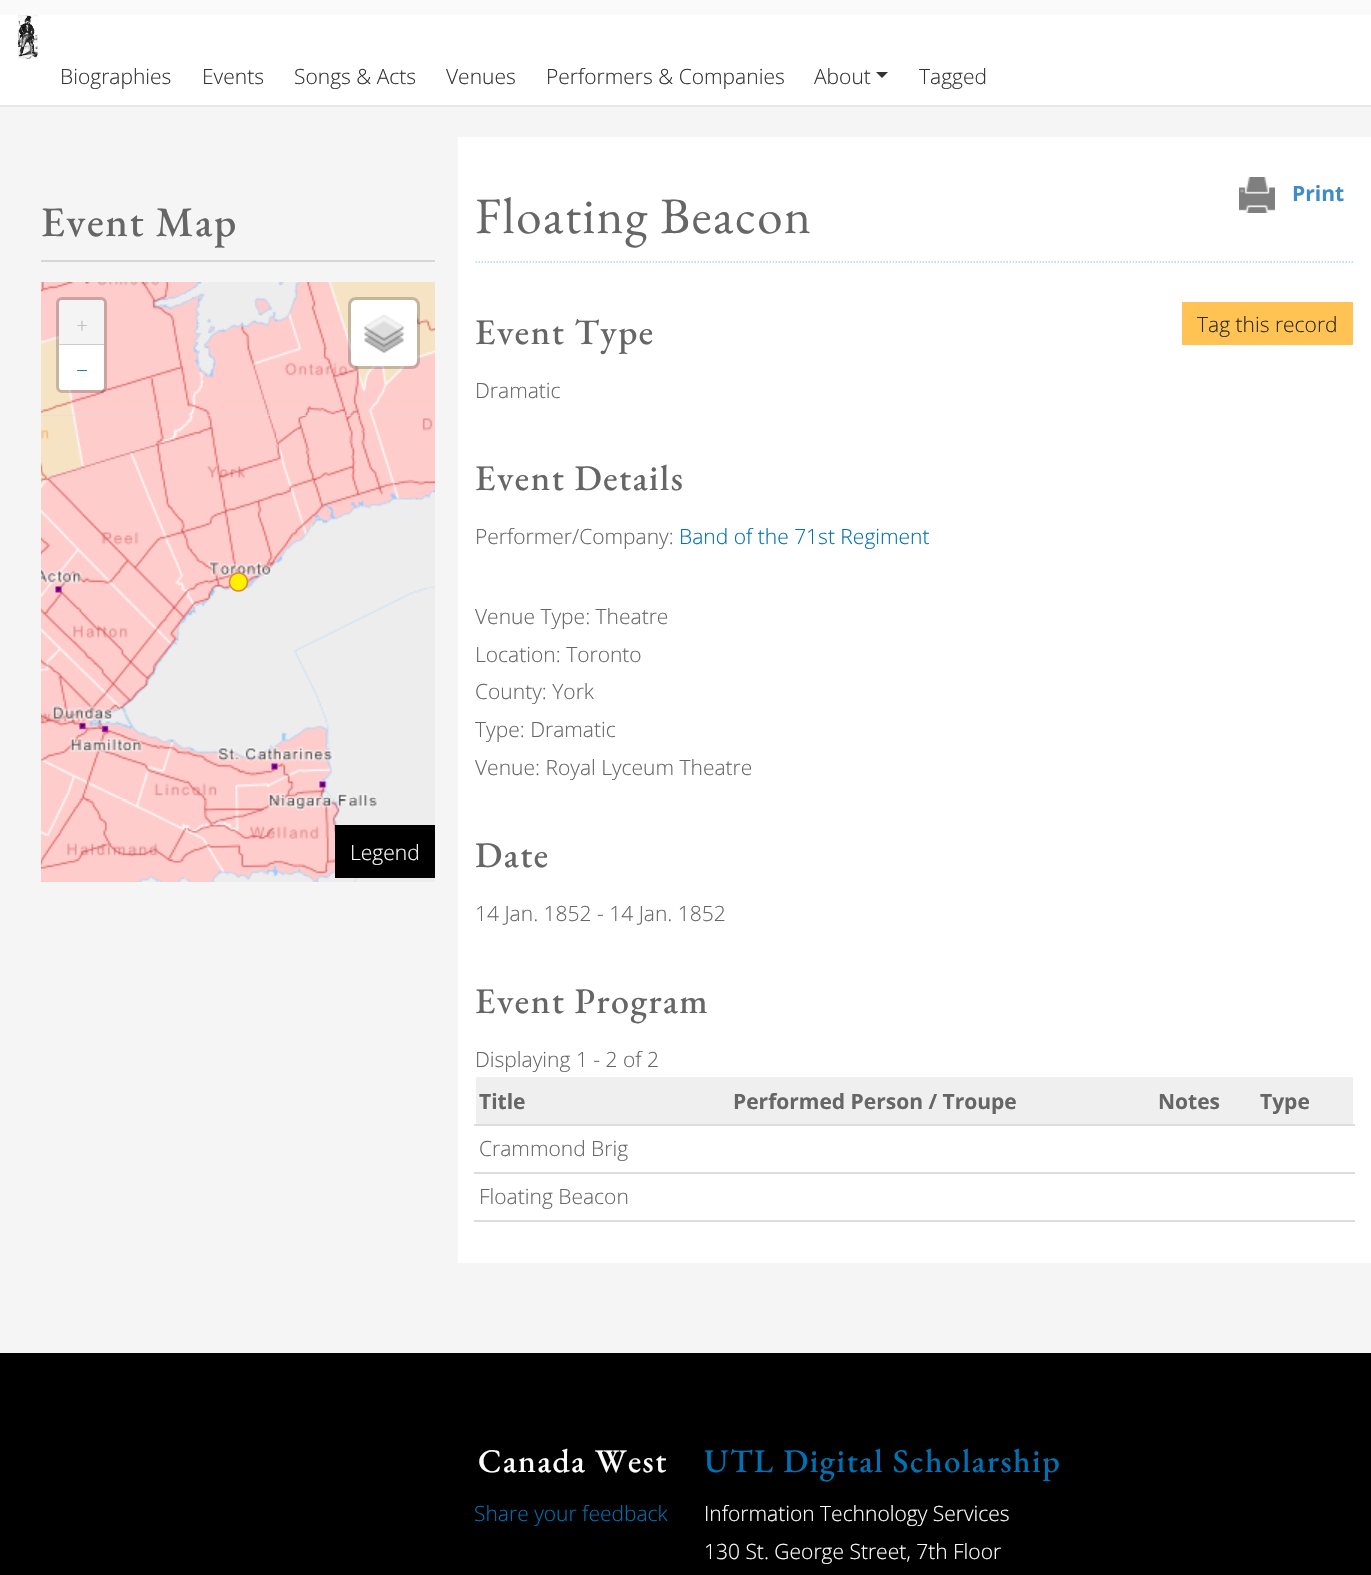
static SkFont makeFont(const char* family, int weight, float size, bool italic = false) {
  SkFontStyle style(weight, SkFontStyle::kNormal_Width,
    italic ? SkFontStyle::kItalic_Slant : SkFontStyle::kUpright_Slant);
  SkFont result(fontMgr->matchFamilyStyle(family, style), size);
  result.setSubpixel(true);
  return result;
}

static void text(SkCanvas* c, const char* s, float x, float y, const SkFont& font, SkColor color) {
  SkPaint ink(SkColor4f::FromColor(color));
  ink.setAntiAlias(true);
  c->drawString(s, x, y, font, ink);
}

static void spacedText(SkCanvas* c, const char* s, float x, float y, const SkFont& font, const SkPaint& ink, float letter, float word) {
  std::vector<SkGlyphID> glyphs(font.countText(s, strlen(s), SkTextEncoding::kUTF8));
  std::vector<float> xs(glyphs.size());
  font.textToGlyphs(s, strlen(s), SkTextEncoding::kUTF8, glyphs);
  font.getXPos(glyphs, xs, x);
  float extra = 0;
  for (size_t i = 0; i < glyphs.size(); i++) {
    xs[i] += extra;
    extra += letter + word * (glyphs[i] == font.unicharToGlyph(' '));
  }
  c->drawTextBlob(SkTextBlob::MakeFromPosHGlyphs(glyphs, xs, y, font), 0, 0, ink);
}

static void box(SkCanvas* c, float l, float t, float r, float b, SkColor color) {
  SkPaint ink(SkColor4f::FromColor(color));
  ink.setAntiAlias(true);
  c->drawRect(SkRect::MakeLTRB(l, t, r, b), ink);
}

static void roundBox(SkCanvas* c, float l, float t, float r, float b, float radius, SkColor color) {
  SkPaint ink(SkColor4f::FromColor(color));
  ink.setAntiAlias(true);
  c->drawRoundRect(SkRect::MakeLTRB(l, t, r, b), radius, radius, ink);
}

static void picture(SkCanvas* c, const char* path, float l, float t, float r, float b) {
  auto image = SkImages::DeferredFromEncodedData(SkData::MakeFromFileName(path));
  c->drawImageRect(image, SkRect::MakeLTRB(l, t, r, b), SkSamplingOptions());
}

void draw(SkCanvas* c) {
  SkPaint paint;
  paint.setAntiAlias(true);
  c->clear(0xfffafafa);
  box(c, 0, 15, 1371, 105, 0xffffffff);
  box(c, 0, 105, 1371, 107, 0xffe7e7e7);
  picture(c, "img_01.png", 18, 15, 38, 59);
  SkFont face1 = makeFont("Open Sans", 300, 21);
  text(c, "Biographies", 60, 84, face1, 0xff333333);
  text(c, "Events", 202, 84, face1, 0xff333333);
  text(c, "Songs & Acts", 294, 84, face1, 0xff333333);
  text(c, "Venues", 446, 84, face1, 0xff333333);
  text(c, "Performers & Companies", 546, 84, face1, 0xff333333);
  text(c, "About", 814, 84, face1, 0xff333333);
  paint.setColor(0xff333333);
  c->drawPath(SkPathBuilder().moveTo(876, 72).lineTo(888, 72).lineTo(882, 78).close().detach(), paint);
  text(c, "Tagged", 919, 84, face1, 0xff333333);
  box(c, 0, 107, 1371, 1353, 0xfff5f5f5);
  box(c, 41, 260, 435, 262, 0xffd6d6d6);
  SkFont face2 = makeFont("EB Garamond", 500, 42);
  paint.setColor(0xff666666);
  spacedText(c, "Event Map", 41, 236, face2, paint, 1.5f, 0);
  box(c, 41, 415, 435, 416, 0xffdddddd);
  picture(c, "img_02.png", 41, 282, 411, 416);
  picture(c, "img_03.png", 411, 282, 435, 416);
  picture(c, "img_04.png", 41, 416, 411, 799);
  picture(c, "img_05.png", 411, 416, 435, 799);
  picture(c, "img_06.png", 41, 799, 411, 882);
  box(c, 411, 799, 435, 882, 0xffededed);
  picture(c, "img_07.png", 41, 282, 361, 416);
  picture(c, "img_08.png", 417, 313, 435, 332);
  picture(c, "img_14.png", 55, 586, 326, 788);
  picture(c, "img_09.png", 41, 416, 411, 800);
  picture(c, "img_10.png", 411, 479, 435, 485);
  picture(c, "img_11.png", 41, 799, 340, 874);
  picture(c, "img_12.png", 41, 561, 377, 800);
  picture(c, "img_13.png", 268, 799, 378, 811);
  picture(c, "img_15.png", 228, 572, 249, 592);
  paint.setStyle(SkPaint::kStroke_Style);
  paint.setStrokeWidth(3);
  paint.setColor(0x33000000);
  c->drawRoundRect(SkRect::MakeLTRB(57.5f, 298.5f, 105.5f, 391.5f), 4.5f, 4.5f, paint);
  paint.setStyle(SkPaint::kFill_Style);
  paint.setColor(0xfff4f4f4);
  c->drawPath(SkPathBuilder().moveTo(62, 300).lineTo(101, 300).cubicTo(102.5f, 300, 104, 301.5f, 104, 303).lineTo(104, 345).lineTo(59, 345).lineTo(59, 303).cubicTo(59, 301.5f, 60.5f, 300, 62, 300).close().detach(), paint);
  box(c, 59, 344, 104, 345, 0xffcccccc);
  text(c, "+", 76, 333, face1, 0xffbbbbbb);
  paint.setColor(0xffffffff);
  c->drawPath(SkPathBuilder().moveTo(59, 345).lineTo(104, 345).lineTo(104, 387).cubicTo(104, 388.5f, 102.5f, 390, 101, 390).lineTo(62, 390).cubicTo(60.5f, 390, 59, 388.5f, 59, 387).close().detach(), paint);
  text(c, "−", 76, 378, face1, 0xff0071b3);
  roundBox(c, 351, 300, 417, 366, 5, 0xffffffff);
  paint.setStyle(SkPaint::kStroke_Style);
  paint.setColor(0x33000000);
  c->drawRoundRect(SkRect::MakeLTRB(349.5f, 298.5f, 418.5f, 367.5f), 6.5f, 6.5f, paint);
  picture(c, "img_16.png", 364, 314, 404, 353);
  box(c, 335, 825, 435, 878, 0xff000000);
  text(c, "Legend", 350, 860, face1, 0xffffffff);
  box(c, 458, 137, 1371, 1263, 0xffffffff);
  picture(c, "img_17.png", 1239, 177, 1275, 213);
  SkFont face3 = makeFont("Open Sans", 700, 21);
  text(c, "Print", 1292, 201, face3, 0xff428bca);
  paint.setStrokeWidth(1.5f);
  paint.setColor(0xffadd8e6);
  paint.setPathEffect(SkDashPathEffect::Make({{1.5f, 1.5f}}, 0));
  c->drawPath(SkPathBuilder().moveTo(475.5f, 262).lineTo(1353, 262).detach(), paint);
  paint.setPathEffect(nullptr);
  SkFont face4 = makeFont("EB Garamond", 400, 51);
  paint.setStyle(SkPaint::kFill_Style);
  paint.setColor(0xff666666);
  spacedText(c, "Floating Beacon", 475, 233, face4, paint, 1.5f, 0);
  SkFont face5 = makeFont("EB Garamond", 500, 36);
  spacedText(c, "Event Type", 475, 344, face5, paint, 1.5f, 0);
  text(c, "Dramatic", 475, 398, face1, 0xff666666);
  box(c, 1182, 302, 1353, 345, 0xffffc353);
  text(c, "Tag this record", 1197, 332, face1, 0xff272727);
  spacedText(c, "Event Details", 475, 490, face5, paint, 1.5f, 0);
  text(c, "Performer/Company:", 475, 544, face1, 0xff666666);
  text(c, "Band of the 71st Regiment", 679, 544, face1, 0xff0071b3);
  text(c, "Venue Type: Theatre", 475, 624, face1, 0xff666666);
  text(c, "Location: Toronto", 475, 662, face1, 0xff666666);
  text(c, "County: York", 475, 699, face1, 0xff666666);
  text(c, "Type: Dramatic", 475, 737, face1, 0xff666666);
  text(c, "Venue: Royal Lyceum Theatre", 475, 775, face1, 0xff666666);
  spacedText(c, "Date", 475, 867, face5, paint, 1.5f, 0);
  text(c, "14 Jan. 1852 - 14 Jan. 1852", 475, 921, face1, 0xff666666);
  spacedText(c, "Event Program", 475, 1013, face5, paint, 1.5f, 0);
  text(c, "Displaying 1 - 2 of 2", 475, 1067, face1, 0xff666666);
  box(c, 476, 1077, 1353, 1124, 0xffefefef);
  text(c, "Title", 479, 1109, face3, 0xff666666);
  text(c, "Performed Person / Troupe", 733, 1109, face3, 0xff666666);
  text(c, "Notes", 1158, 1109, face3, 0xff666666);
  text(c, "Type", 1260, 1109, face3, 0xff666666);
  box(c, 474, 1124, 1355, 1126, 0xffdddddd);
  text(c, "Crammond Brig", 479, 1156, face1, 0xff666666);
  box(c, 474, 1172, 1355, 1174, 0xffdddddd);
  text(c, "Floating Beacon", 479, 1204, face1, 0xff666666);
  box(c, 474, 1220, 1355, 1222, 0xffdddddd);
  box(c, 0, 1353, 1371, 1575, 0xff000000);
  SkFont face6 = makeFont("EB Garamond", 500, 33);
  paint.setColor(0xffffffff);
  spacedText(c, "Canada West", 478, 1472, face6, paint, 1.5f, 0);
  text(c, "Share your feedback", 474, 1521, face1, 0xff0071b3);
  paint.setColor(0xff0071b3);
  spacedText(c, "UTL Digital Scholarship", 704, 1472, face6, paint, 1.5f, 0);
  text(c, "Information Technology Services", 704, 1521, face1, 0xffffffff);
  text(c, "130 St. George Street, 7th Floor", 704, 1559, face1, 0xffffffff);
}
